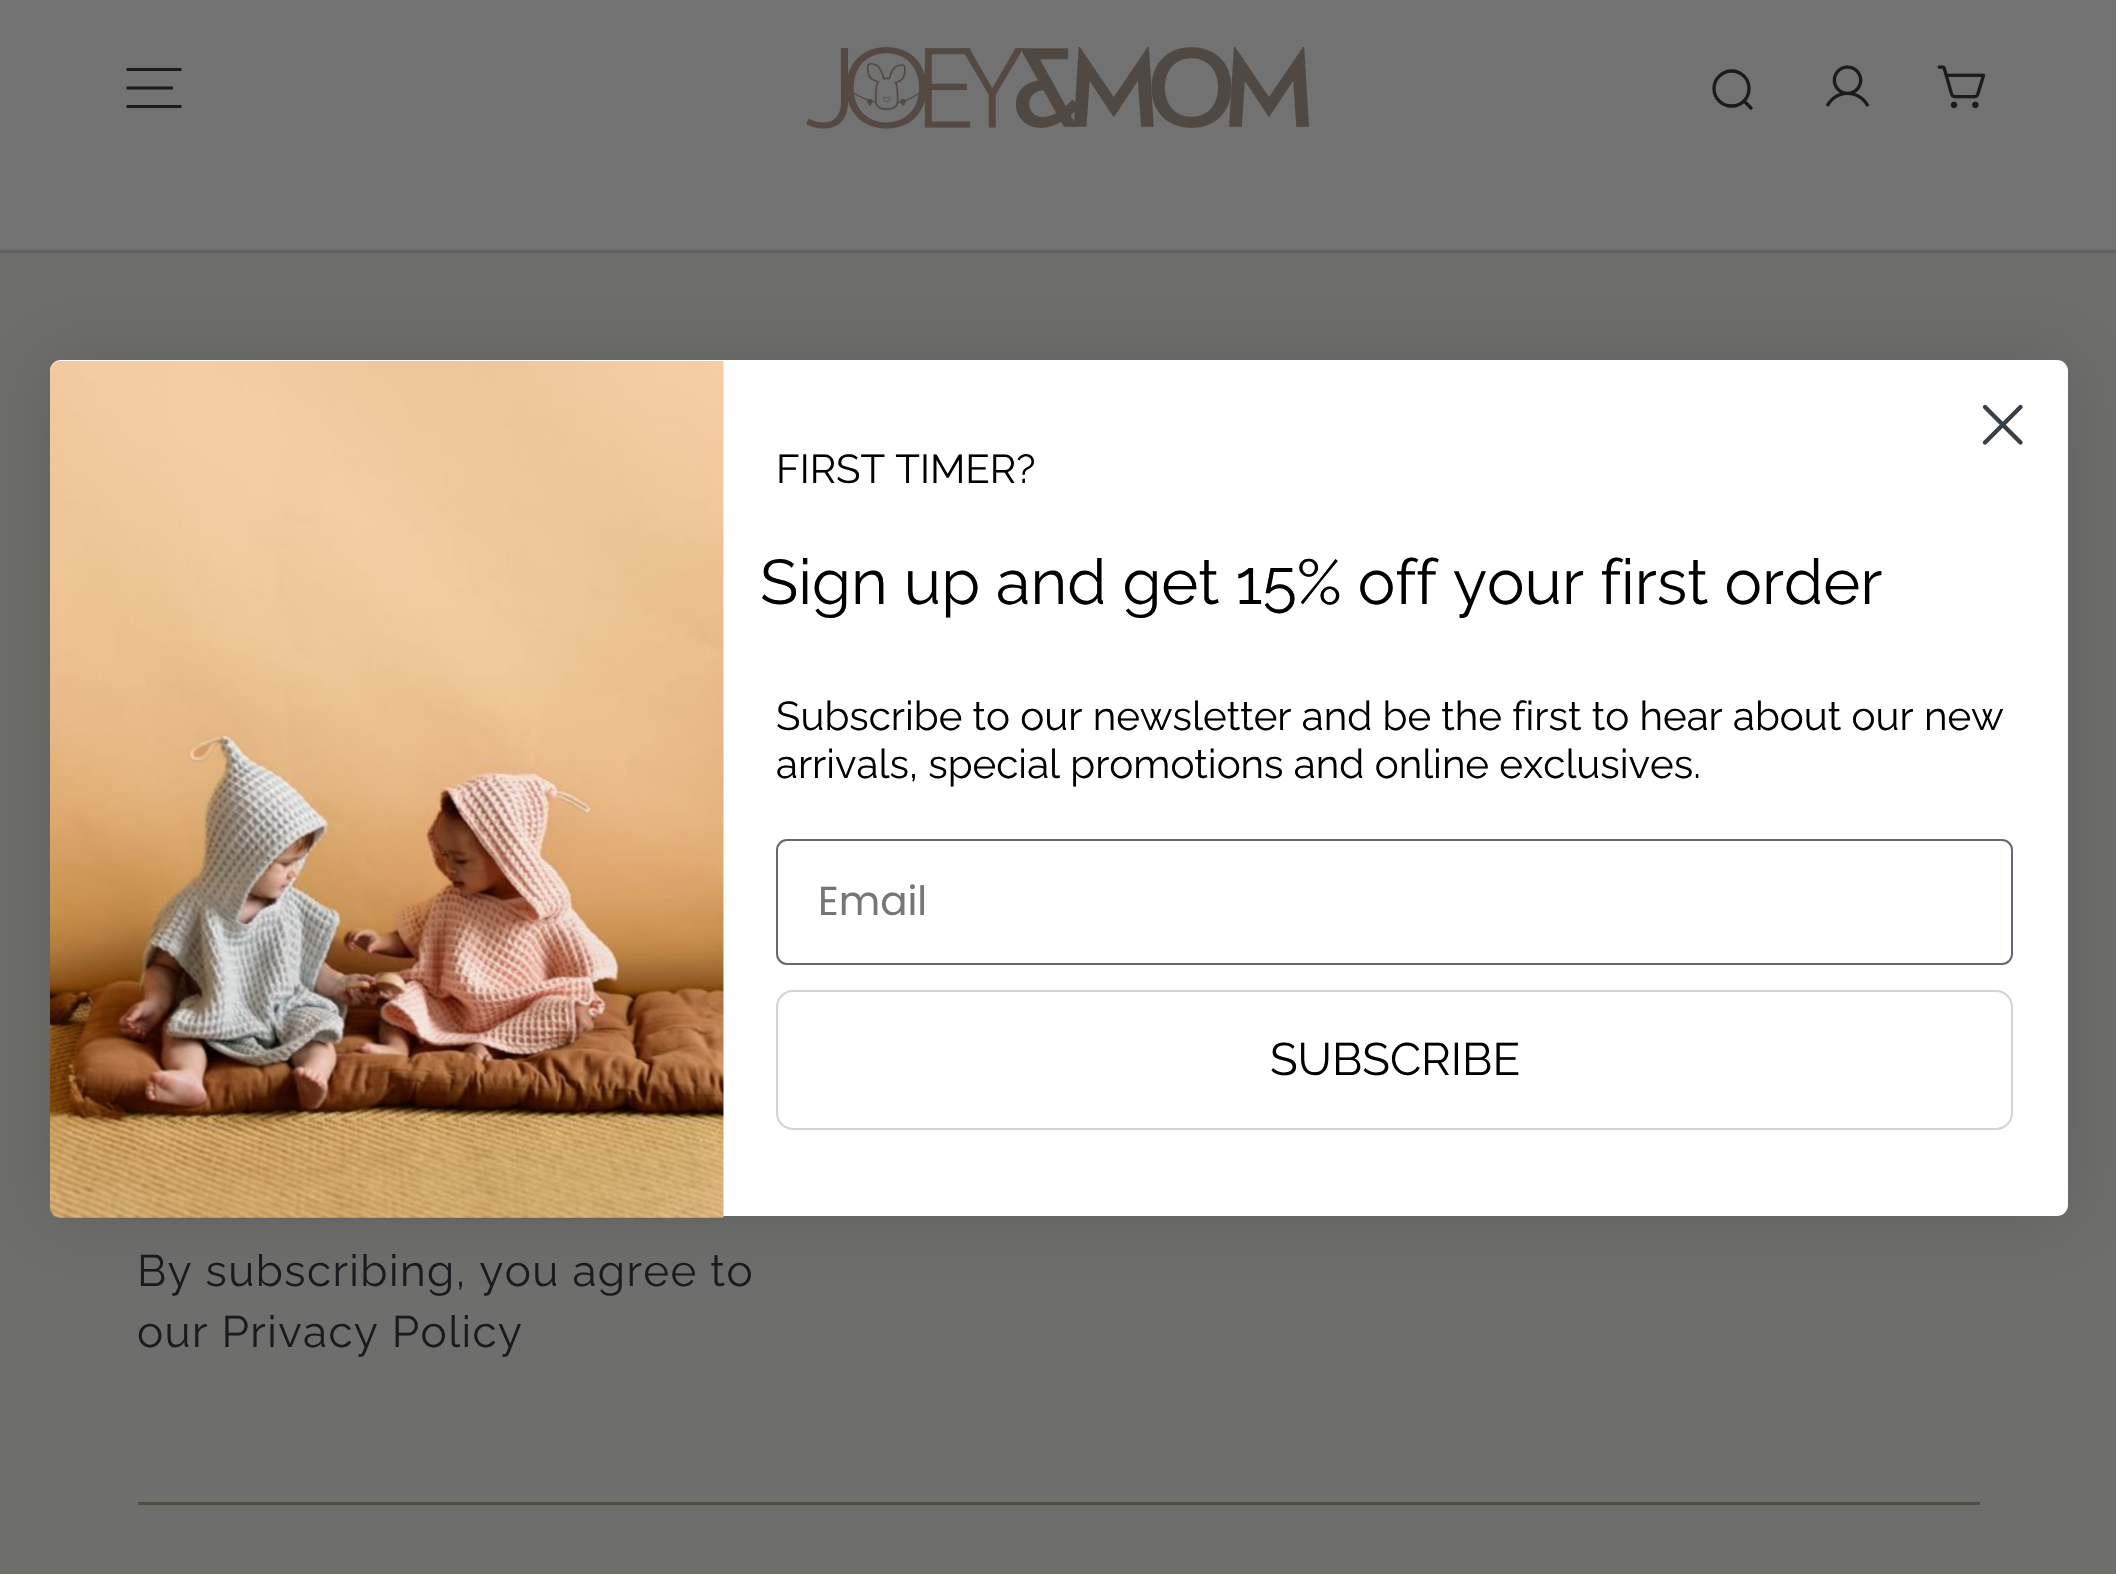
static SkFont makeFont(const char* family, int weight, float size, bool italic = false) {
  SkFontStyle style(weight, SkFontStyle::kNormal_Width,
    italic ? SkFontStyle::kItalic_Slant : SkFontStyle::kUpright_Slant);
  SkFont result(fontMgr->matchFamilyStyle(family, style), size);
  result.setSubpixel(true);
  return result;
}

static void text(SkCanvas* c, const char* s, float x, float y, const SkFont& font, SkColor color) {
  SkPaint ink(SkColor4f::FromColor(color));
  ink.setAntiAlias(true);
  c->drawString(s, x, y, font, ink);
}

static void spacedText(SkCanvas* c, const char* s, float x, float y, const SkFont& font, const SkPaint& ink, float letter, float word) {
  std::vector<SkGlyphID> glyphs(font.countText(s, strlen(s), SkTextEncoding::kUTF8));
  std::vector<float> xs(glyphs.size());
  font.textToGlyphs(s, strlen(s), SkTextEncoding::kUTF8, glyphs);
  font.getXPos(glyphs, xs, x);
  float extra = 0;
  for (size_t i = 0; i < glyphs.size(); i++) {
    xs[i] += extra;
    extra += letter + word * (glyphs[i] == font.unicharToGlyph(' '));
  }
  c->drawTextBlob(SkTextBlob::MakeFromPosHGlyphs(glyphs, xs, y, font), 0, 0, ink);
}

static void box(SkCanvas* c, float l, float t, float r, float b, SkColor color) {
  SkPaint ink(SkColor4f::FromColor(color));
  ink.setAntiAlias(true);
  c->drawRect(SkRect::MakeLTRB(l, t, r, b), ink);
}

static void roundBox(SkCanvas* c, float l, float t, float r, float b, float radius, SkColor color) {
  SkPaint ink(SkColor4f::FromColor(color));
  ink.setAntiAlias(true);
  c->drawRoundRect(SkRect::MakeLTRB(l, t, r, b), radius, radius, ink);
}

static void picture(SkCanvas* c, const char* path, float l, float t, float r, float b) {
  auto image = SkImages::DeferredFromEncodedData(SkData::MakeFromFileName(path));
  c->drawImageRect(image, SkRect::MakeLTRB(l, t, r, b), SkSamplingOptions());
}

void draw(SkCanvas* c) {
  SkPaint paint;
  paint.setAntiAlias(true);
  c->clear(0xff727272);
  box(c, 0, 253, 2116, 1574, 0xff6e6e6c);
  box(c, 0, 250, 2116, 253, 0xff606163);
  paint.setColor(0x26000000);
  paint.setMaskFilter(SkMaskFilter::MakeBlur(kNormal_SkBlurStyle, 38));
  c->drawRoundRect(SkRect::MakeLTRB(50, 360, 2068, 1216), 11, 11, paint);
  paint.setMaskFilter(nullptr);
  roundBox(c, 50, 360, 2068, 1216, 11, 0xffffffff);
  paint.setStyle(SkPaint::kStroke_Style);
  paint.setStrokeWidth(4.4f);
  paint.setStrokeCap(SkPaint::kRound_Cap);
  paint.setStrokeJoin(SkPaint::kRound_Join);
  paint.setColor(0xff373f47);
  c->drawPath(SkPathBuilder().moveTo(1985, 407).lineTo(2020.5f, 442.5f).moveTo(1985, 442.5f).lineTo(2020.5f, 407).close().detach(), paint);
  picture(c, "img_01.png", 50, 361, 724, 1218);
  SkFont face1 = makeFont("Raleway", 100, 40.3f);
  text(c, "FIRST TIMER?", 776, 483, face1, 0xff000000);
  SkFont face2 = makeFont("Raleway", 100, 63);
  text(c, "Sign up and get 15% off your first order", 760, 604, face2, 0xff000000);
  text(c, "Subscribe to our newsletter and be the first to hear about our new", 776, 730, face1, 0xff000000);
  text(c, "arrivals, special promotions and online exclusives.", 776, 778, face1, 0xff000000);
  paint.setStrokeWidth(2);
  paint.setStrokeCap(SkPaint::kButt_Cap);
  paint.setStrokeJoin(SkPaint::kMiter_Join);
  paint.setColor(0xff606a72);
  c->drawRoundRect(SkRect::MakeLTRB(777, 840, 2012, 964), 10, 10, paint);
  SkFont face3 = makeFont("Poppins", 400, 40.3f);
  text(c, "Email", 818, 915, face3, 0xff767676);
  paint.setColor(0xffd3d3d3);
  c->drawRoundRect(SkRect::MakeLTRB(777, 991, 2012, 1129), 16, 16, paint);
  SkFont face4 = makeFont("Raleway", 100, 45.5f);
  text(c, "SUBSCRIBE", 1270, 1075, face4, 0xff000000);
  paint.setStrokeWidth(3.1f);
  paint.setColor(0xff1c1c1c);
  c->drawPath(SkPathBuilder().moveTo(126.5f, 106.5f).lineTo(181.5f, 106.5f).moveTo(126.5f, 88).lineTo(173, 88).moveTo(126.5f, 69.5f).lineTo(181.5f, 69.5f).detach(), paint);
  picture(c, "img_02.png", 806, 47, 1309, 129);
  paint.setStrokeWidth(3.3f);
  paint.setStrokeCap(SkPaint::kRound_Cap);
  paint.setStrokeJoin(SkPaint::kRound_Join);
  paint.setColor(0xff191b1e);
  c->drawPath(SkPathBuilder().moveTo(1744.5f, 101.5f).lineTo(1751, 108).moveTo(1749, 88.5f).cubicTo(1749, 79, 1741.5f, 71, 1731.5f, 71).cubicTo(1722, 71, 1714, 79, 1714, 88.5f).cubicTo(1714, 98.5f, 1722, 106, 1731.5f, 106).cubicTo(1741.5f, 106, 1749, 98.5f, 1749, 88.5f).close().detach(), paint);
  picture(c, "img_03.png", 1826, 65, 1869, 107);
  picture(c, "img_04.png", 1937, 65, 1986, 109);
  SkFont face5 = makeFont("Raleway", 100, 44);
  paint.setStyle(SkPaint::kFill_Style);
  spacedText(c, "By subscribing, you agree to", 137, 1286, face5, paint, 1.4f, 0);
  spacedText(c, "our Privacy Policy", 137, 1347, face5, paint, 1.4f, 0);
  box(c, 138, 1502, 1980, 1505, 0xff4e5043);
}
